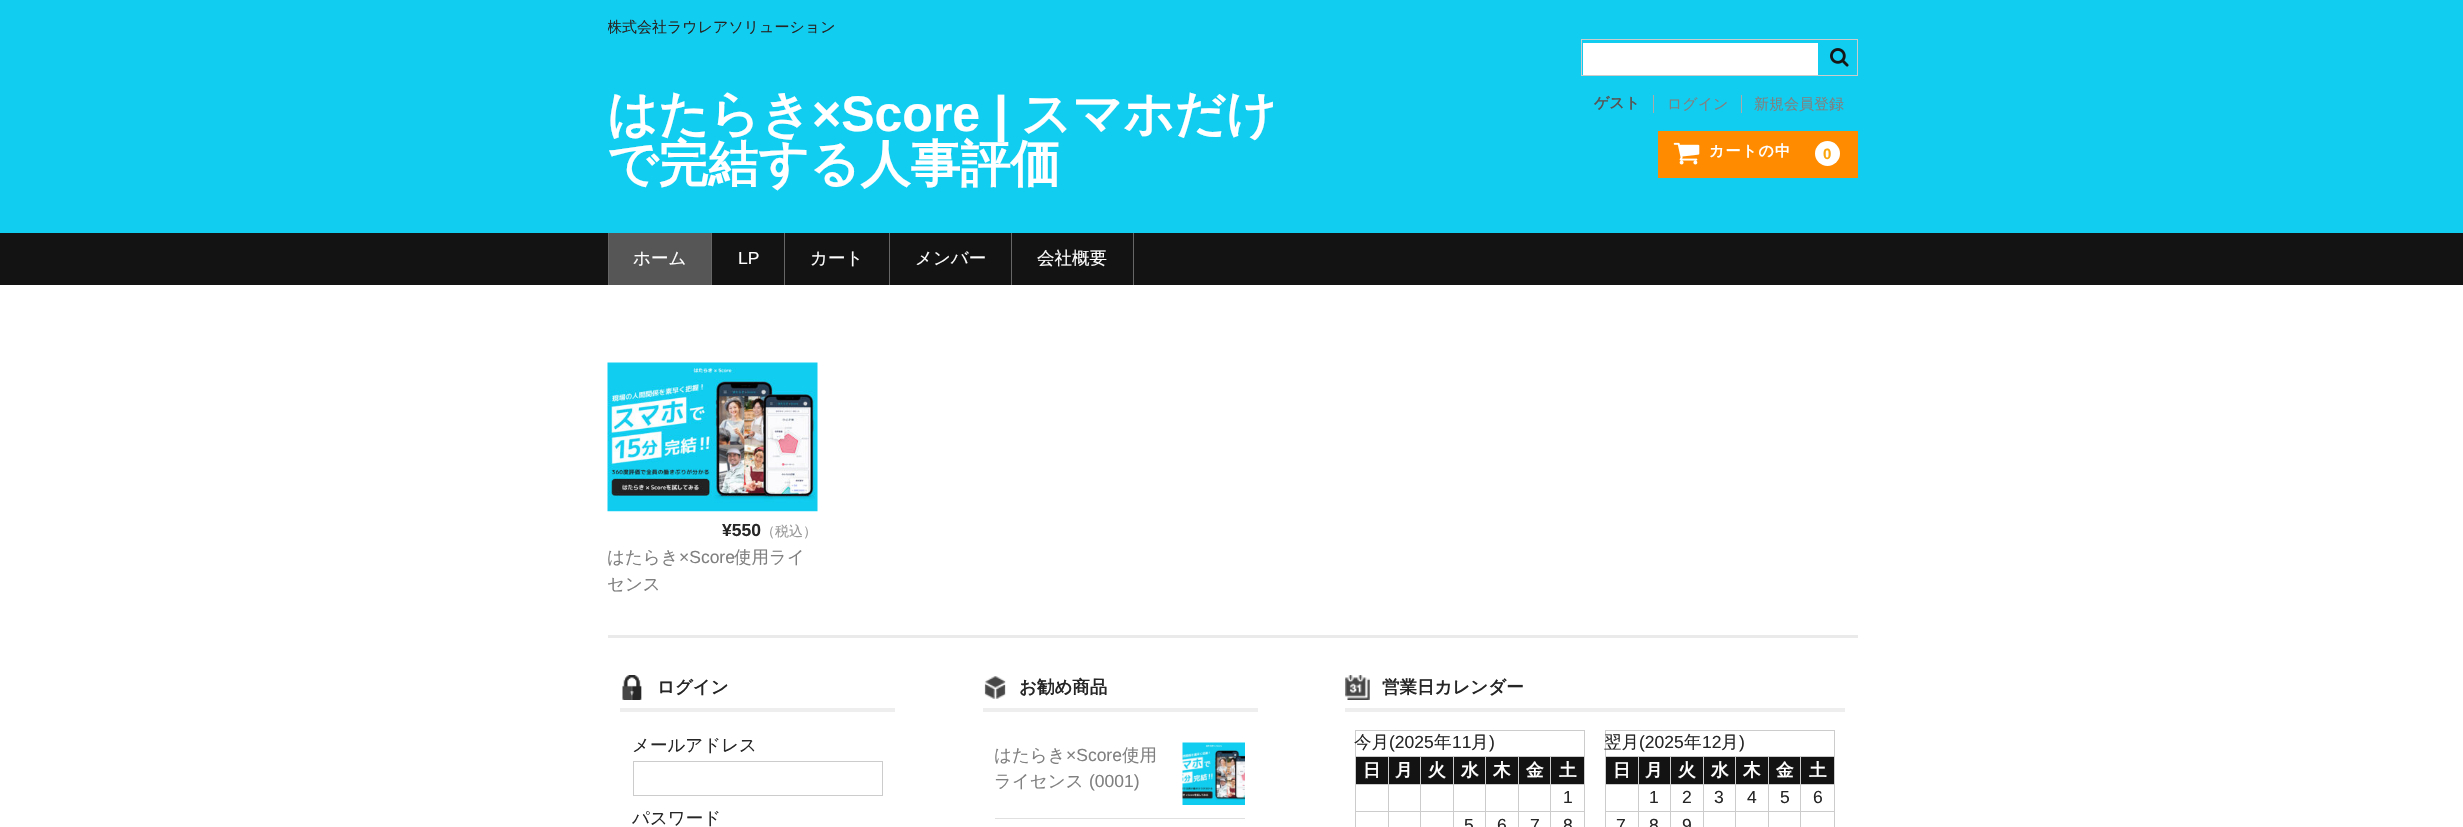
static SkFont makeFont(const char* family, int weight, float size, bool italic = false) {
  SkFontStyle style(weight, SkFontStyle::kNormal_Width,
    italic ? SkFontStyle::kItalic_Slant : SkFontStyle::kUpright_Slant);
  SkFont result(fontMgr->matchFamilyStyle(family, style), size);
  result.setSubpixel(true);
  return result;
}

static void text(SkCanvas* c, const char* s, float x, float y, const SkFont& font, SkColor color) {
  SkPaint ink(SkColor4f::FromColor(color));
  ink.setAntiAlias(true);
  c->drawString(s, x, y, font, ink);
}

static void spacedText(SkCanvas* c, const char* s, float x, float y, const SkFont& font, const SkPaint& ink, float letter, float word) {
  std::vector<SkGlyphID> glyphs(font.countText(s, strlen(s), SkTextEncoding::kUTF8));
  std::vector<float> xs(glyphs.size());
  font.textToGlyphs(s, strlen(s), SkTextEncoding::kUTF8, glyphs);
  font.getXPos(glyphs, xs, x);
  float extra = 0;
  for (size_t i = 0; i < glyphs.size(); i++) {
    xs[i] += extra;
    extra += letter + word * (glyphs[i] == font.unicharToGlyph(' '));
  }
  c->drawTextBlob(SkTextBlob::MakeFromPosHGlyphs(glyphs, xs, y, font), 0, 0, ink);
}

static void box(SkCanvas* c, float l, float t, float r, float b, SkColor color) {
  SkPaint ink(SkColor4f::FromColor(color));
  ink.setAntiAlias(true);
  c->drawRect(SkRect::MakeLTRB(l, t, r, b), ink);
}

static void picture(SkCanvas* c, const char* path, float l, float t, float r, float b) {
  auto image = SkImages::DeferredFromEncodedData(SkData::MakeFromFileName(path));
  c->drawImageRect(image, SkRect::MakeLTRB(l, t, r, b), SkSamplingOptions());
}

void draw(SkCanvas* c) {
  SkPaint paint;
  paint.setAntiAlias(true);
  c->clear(0xffffffff);
  box(c, 0, 0, 2463, 233, 0xff11cdf0);
  c->save();
  c->clipRect(SkRect::MakeLTRB(608, 0, 1295, 39));
  SkFont face1 = makeFont("WenQuanYi Zen Hei", 500, 15);
  text(c, "株式会社ラウレアソリューション", 607, 32, face1, 0xff262626);
  c->restore();
  SkFont face2 = makeFont("WenQuanYi Zen Hei", 700, 50);
  text(c, "はたらき", 607, 131, face2, 0xffffffff);
  SkFont face3 = makeFont("Liberation Sans", 700, 50);
  text(c, "×Score |", 812, 131, face3, 0xffffffff);
  text(c, "スマホだけ", 1021, 131, face2, 0xffffffff);
  text(c, "で完結する人事評価", 607, 181, face2, 0xffffffff);
  paint.setStyle(SkPaint::kStroke_Style);
  paint.setStrokeWidth(1);
  paint.setColor(0xffcccccc);
  c->drawRect(SkRect::MakeLTRB(1581.5f, 39.5f, 1857.5f, 75.5f), paint);
  box(c, 1583, 43, 1818, 75, 0xffffffff);
  picture(c, "img_01.png", 1830, 48, 1849, 67);
  box(c, 1653, 95, 1654, 113, 0xffaaaaaa);
  SkFont face4 = makeFont("WenQuanYi Zen Hei", 700, 15);
  text(c, "ゲスト", 1594, 108, face4, 0xff565656);
  box(c, 1741, 95, 1742, 113, 0xffaaaaaa);
  text(c, "ログイン", 1667, 109, face1, 0xff808080);
  text(c, "新規会員登録", 1754, 109, face1, 0xff808080);
  box(c, 1658, 131, 1858, 178, 0xffff8c00);
  picture(c, "img_02.png", 1673, 142, 1700, 165);
  paint.setStyle(SkPaint::kFill_Style);
  paint.setColor(0xffffffff);
  spacedText(c, "カートの中", 1709, 156, face4, paint, 1.25f, 0);
  c->drawCircle(1827.5f, 153.5f, 12.5f, paint);
  SkFont face5 = makeFont("Liberation Sans", 700, 15);
  paint.setColor(0xfffba60d);
  spacedText(c, "0", 1823, 159, face5, paint, 1.25f, 0);
  box(c, 0, 233, 2463, 285, 0xff131313);
  box(c, 711, 233, 712, 285, 0xff666666);
  box(c, 608, 233, 609, 285, 0xff666666);
  box(c, 609, 233, 711, 285, 0xff565656);
  SkFont face6 = makeFont("WenQuanYi Zen Hei", 500, 17.5f);
  text(c, "ホーム", 633, 264, face6, 0xffffffff);
  box(c, 784, 233, 785, 285, 0xff666666);
  SkFont face7 = makeFont("Liberation Sans", 400, 17.5f);
  text(c, "LP", 738, 264, face7, 0xffffffff);
  box(c, 889, 233, 890, 285, 0xff666666);
  text(c, "カート", 810, 264, face6, 0xffffffff);
  box(c, 1011, 233, 1012, 285, 0xff666666);
  text(c, "メンバー", 915, 264, face6, 0xffffffff);
  box(c, 1133, 233, 1134, 285, 0xff666666);
  text(c, "会社概要", 1037, 264, face6, 0xffffffff);
  picture(c, "img_03.png", 607, 362, 818, 512);
  SkFont face8 = makeFont("Liberation Sans", 700, 17.5f);
  text(c, "¥550", 722, 536, face8, 0xff262626);
  SkFont face9 = makeFont("WenQuanYi Zen Hei", 500, 14);
  text(c, "（税込）", 761, 536, face9, 0xff999999);
  text(c, "はたらき", 607, 563, face6, 0xff808080);
  text(c, "×Score", 679, 563, face7, 0xff808080);
  text(c, "使用ライ", 734, 563, face6, 0xff808080);
  text(c, "センス", 607, 590, face6, 0xff808080);
  box(c, 608, 635, 1858, 638, 0xffeaeaea);
  box(c, 620, 708, 895, 712, 0xffeeeeee);
  picture(c, "img_04.png", 622, 675, 642, 700);
  SkFont face10 = makeFont("WenQuanYi Zen Hei", 700, 17.5f);
  text(c, "ログイン", 657, 693, face10, 0xff262626);
  text(c, "メールアドレス", 632, 751, face6, 0xff262626);
  paint.setStyle(SkPaint::kStroke_Style);
  paint.setColor(0xffcccccc);
  c->drawRect(SkRect::MakeLTRB(633.5f, 761.5f, 882.5f, 795.5f), paint);
  text(c, "パスワード", 632, 824, face6, 0xff262626);
  box(c, 983, 708, 1258, 712, 0xffeeeeee);
  picture(c, "img_05.png", 984, 676, 1006, 699);
  text(c, "お勧め商品", 1019, 693, face10, 0xff262626);
  box(c, 995, 818, 1245, 819, 0xffe0e0e0);
  text(c, "はたらき", 994, 761, face6, 0xff808080);
  text(c, "×Score", 1066, 761, face7, 0xff808080);
  text(c, "使用", 1122, 761, face6, 0xff808080);
  text(c, "ライセンス", 994, 787, face6, 0xff808080);
  text(c, "(0001)", 1089, 787, face7, 0xff808080);
  picture(c, "img_06.png", 1182, 742, 1245, 805);
  box(c, 1345, 708, 1845, 712, 0xffeeeeee);
  picture(c, "img_07.png", 1345, 675, 1370, 700);
  text(c, "営業日カレンダー", 1382, 693, face10, 0xff262626);
  box(c, 1355, 730, 1585, 731, 0xffcccccc);
  box(c, 1584, 730, 1585, 827, 0xffcccccc);
  box(c, 1355, 730, 1356, 827, 0xffcccccc);
  text(c, "今月", 1354, 748, face6, 0xff262626);
  text(c, "(2025", 1389, 748, face7, 0xff262626);
  text(c, "年", 1434, 748, face6, 0xff262626);
  text(c, "11", 1452, 748, face7, 0xff262626);
  text(c, "月", 1471, 748, face6, 0xff262626);
  text(c, ")", 1489, 748, face7, 0xff262626);
  box(c, 1356, 757, 1388, 784, 0xff131313);
  box(c, 1550, 756, 1585, 757, 0xffcccccc);
  box(c, 1550, 784, 1585, 785, 0xffcccccc);
  box(c, 1550, 811, 1585, 812, 0xffcccccc);
  box(c, 1550, 811, 1551, 827, 0xffcccccc);
  box(c, 1518, 811, 1551, 812, 0xffcccccc);
  box(c, 1550, 784, 1551, 813, 0xffcccccc);
  box(c, 1518, 784, 1551, 785, 0xffcccccc);
  box(c, 1550, 756, 1551, 785, 0xffcccccc);
  box(c, 1518, 756, 1551, 757, 0xffcccccc);
  box(c, 1518, 811, 1519, 827, 0xffcccccc);
  box(c, 1485, 811, 1519, 812, 0xffcccccc);
  box(c, 1518, 784, 1519, 813, 0xffcccccc);
  box(c, 1485, 784, 1519, 785, 0xffcccccc);
  box(c, 1518, 756, 1519, 785, 0xffcccccc);
  box(c, 1485, 756, 1519, 757, 0xffcccccc);
  box(c, 1485, 811, 1486, 827, 0xffcccccc);
  box(c, 1453, 811, 1486, 812, 0xffcccccc);
  box(c, 1485, 784, 1486, 813, 0xffcccccc);
  box(c, 1453, 784, 1486, 785, 0xffcccccc);
  box(c, 1485, 756, 1486, 785, 0xffcccccc);
  box(c, 1453, 756, 1486, 757, 0xffcccccc);
  box(c, 1453, 811, 1454, 827, 0xffcccccc);
  box(c, 1420, 811, 1454, 812, 0xffcccccc);
  box(c, 1453, 784, 1454, 813, 0xffcccccc);
  box(c, 1420, 784, 1454, 785, 0xffcccccc);
  box(c, 1453, 756, 1454, 785, 0xffcccccc);
  box(c, 1420, 756, 1454, 757, 0xffcccccc);
  box(c, 1420, 811, 1421, 827, 0xffcccccc);
  box(c, 1388, 811, 1421, 812, 0xffcccccc);
  box(c, 1420, 784, 1421, 813, 0xffcccccc);
  box(c, 1388, 784, 1421, 785, 0xffcccccc);
  box(c, 1420, 756, 1421, 785, 0xffcccccc);
  box(c, 1388, 756, 1421, 757, 0xffcccccc);
  box(c, 1388, 811, 1389, 827, 0xffcccccc);
  box(c, 1355, 811, 1389, 812, 0xffcccccc);
  box(c, 1388, 784, 1389, 813, 0xffcccccc);
  box(c, 1355, 784, 1389, 785, 0xffcccccc);
  box(c, 1388, 756, 1389, 785, 0xffcccccc);
  box(c, 1355, 756, 1389, 757, 0xffcccccc);
  text(c, "日", 1363, 776, face10, 0xffffffff);
  box(c, 1389, 757, 1420, 784, 0xff131313);
  text(c, "月", 1395, 776, face10, 0xffffffff);
  box(c, 1421, 757, 1453, 784, 0xff131313);
  text(c, "火", 1428, 776, face10, 0xffffffff);
  box(c, 1454, 757, 1485, 784, 0xff131313);
  text(c, "水", 1461, 776, face10, 0xffffffff);
  box(c, 1486, 757, 1518, 784, 0xff131313);
  text(c, "木", 1493, 776, face10, 0xffffffff);
  box(c, 1519, 757, 1550, 784, 0xff131313);
  text(c, "金", 1526, 776, face10, 0xffffffff);
  box(c, 1551, 757, 1584, 784, 0xff131313);
  text(c, "土", 1559, 776, face10, 0xffffffff);
  text(c, "1", 1563, 803, face7, 0xff262626);
  text(c, "5", 1464, 831, face7, 0xff262626);
  text(c, "6", 1497, 831, face7, 0xff262626);
  text(c, "7", 1530, 831, face7, 0xff262626);
  text(c, "8", 1563, 831, face7, 0xff262626);
  box(c, 1605, 730, 1835, 731, 0xffcccccc);
  box(c, 1834, 730, 1835, 827, 0xffcccccc);
  box(c, 1605, 730, 1606, 827, 0xffcccccc);
  text(c, "翌月", 1604, 748, face6, 0xff262626);
  text(c, "(2025", 1639, 748, face7, 0xff262626);
  text(c, "年", 1684, 748, face6, 0xff262626);
  text(c, "12", 1702, 748, face7, 0xff262626);
  text(c, "月", 1721, 748, face6, 0xff262626);
  text(c, ")", 1739, 748, face7, 0xff262626);
  box(c, 1606, 757, 1638, 784, 0xff131313);
  box(c, 1800, 756, 1835, 757, 0xffcccccc);
  box(c, 1800, 784, 1835, 785, 0xffcccccc);
  box(c, 1800, 811, 1835, 812, 0xffcccccc);
  box(c, 1800, 811, 1801, 827, 0xffcccccc);
  box(c, 1768, 811, 1801, 812, 0xffcccccc);
  box(c, 1800, 784, 1801, 813, 0xffcccccc);
  box(c, 1768, 784, 1801, 785, 0xffcccccc);
  box(c, 1800, 756, 1801, 785, 0xffcccccc);
  box(c, 1768, 756, 1801, 757, 0xffcccccc);
  box(c, 1768, 811, 1769, 827, 0xffcccccc);
  box(c, 1735, 811, 1769, 812, 0xffcccccc);
  box(c, 1768, 784, 1769, 813, 0xffcccccc);
  box(c, 1735, 784, 1769, 785, 0xffcccccc);
  box(c, 1768, 756, 1769, 785, 0xffcccccc);
  box(c, 1735, 756, 1769, 757, 0xffcccccc);
  box(c, 1735, 811, 1736, 827, 0xffcccccc);
  box(c, 1703, 811, 1736, 812, 0xffcccccc);
  box(c, 1735, 784, 1736, 813, 0xffcccccc);
  box(c, 1703, 784, 1736, 785, 0xffcccccc);
  box(c, 1735, 756, 1736, 785, 0xffcccccc);
  box(c, 1703, 756, 1736, 757, 0xffcccccc);
  box(c, 1703, 811, 1704, 827, 0xffcccccc);
  box(c, 1670, 811, 1704, 812, 0xffcccccc);
  box(c, 1703, 784, 1704, 813, 0xffcccccc);
  box(c, 1670, 784, 1704, 785, 0xffcccccc);
  box(c, 1703, 756, 1704, 785, 0xffcccccc);
  box(c, 1670, 756, 1704, 757, 0xffcccccc);
  box(c, 1670, 811, 1671, 827, 0xffcccccc);
  box(c, 1638, 811, 1671, 812, 0xffcccccc);
  box(c, 1670, 784, 1671, 813, 0xffcccccc);
  box(c, 1638, 784, 1671, 785, 0xffcccccc);
  box(c, 1670, 756, 1671, 785, 0xffcccccc);
  box(c, 1638, 756, 1671, 757, 0xffcccccc);
  box(c, 1638, 811, 1639, 827, 0xffcccccc);
  box(c, 1605, 811, 1639, 812, 0xffcccccc);
  box(c, 1638, 784, 1639, 813, 0xffcccccc);
  box(c, 1605, 784, 1639, 785, 0xffcccccc);
  box(c, 1638, 756, 1639, 785, 0xffcccccc);
  box(c, 1605, 756, 1639, 757, 0xffcccccc);
  text(c, "日", 1613, 776, face10, 0xffffffff);
  box(c, 1639, 757, 1670, 784, 0xff131313);
  text(c, "月", 1645, 776, face10, 0xffffffff);
  box(c, 1671, 757, 1703, 784, 0xff131313);
  text(c, "火", 1678, 776, face10, 0xffffffff);
  box(c, 1704, 757, 1735, 784, 0xff131313);
  text(c, "水", 1711, 776, face10, 0xffffffff);
  box(c, 1736, 757, 1768, 784, 0xff131313);
  text(c, "木", 1743, 776, face10, 0xffffffff);
  box(c, 1769, 757, 1800, 784, 0xff131313);
  text(c, "金", 1776, 776, face10, 0xffffffff);
  box(c, 1801, 757, 1834, 784, 0xff131313);
  text(c, "土", 1809, 776, face10, 0xffffffff);
  text(c, "1", 1649, 803, face7, 0xff262626);
  text(c, "2", 1682, 803, face7, 0xff262626);
  text(c, "3", 1714, 803, face7, 0xff262626);
  text(c, "4", 1747, 803, face7, 0xff262626);
  text(c, "5", 1780, 803, face7, 0xff262626);
  text(c, "6", 1813, 803, face7, 0xff262626);
  text(c, "7", 1616, 831, face7, 0xff262626);
  text(c, "8", 1649, 831, face7, 0xff262626);
  text(c, "9", 1682, 831, face7, 0xff262626);
}
